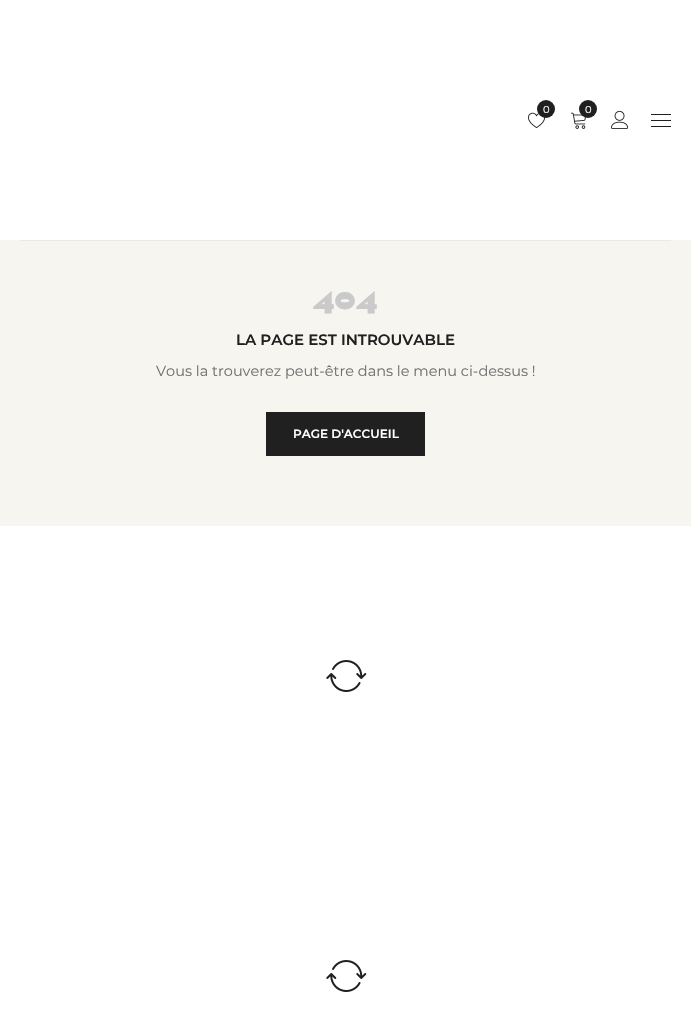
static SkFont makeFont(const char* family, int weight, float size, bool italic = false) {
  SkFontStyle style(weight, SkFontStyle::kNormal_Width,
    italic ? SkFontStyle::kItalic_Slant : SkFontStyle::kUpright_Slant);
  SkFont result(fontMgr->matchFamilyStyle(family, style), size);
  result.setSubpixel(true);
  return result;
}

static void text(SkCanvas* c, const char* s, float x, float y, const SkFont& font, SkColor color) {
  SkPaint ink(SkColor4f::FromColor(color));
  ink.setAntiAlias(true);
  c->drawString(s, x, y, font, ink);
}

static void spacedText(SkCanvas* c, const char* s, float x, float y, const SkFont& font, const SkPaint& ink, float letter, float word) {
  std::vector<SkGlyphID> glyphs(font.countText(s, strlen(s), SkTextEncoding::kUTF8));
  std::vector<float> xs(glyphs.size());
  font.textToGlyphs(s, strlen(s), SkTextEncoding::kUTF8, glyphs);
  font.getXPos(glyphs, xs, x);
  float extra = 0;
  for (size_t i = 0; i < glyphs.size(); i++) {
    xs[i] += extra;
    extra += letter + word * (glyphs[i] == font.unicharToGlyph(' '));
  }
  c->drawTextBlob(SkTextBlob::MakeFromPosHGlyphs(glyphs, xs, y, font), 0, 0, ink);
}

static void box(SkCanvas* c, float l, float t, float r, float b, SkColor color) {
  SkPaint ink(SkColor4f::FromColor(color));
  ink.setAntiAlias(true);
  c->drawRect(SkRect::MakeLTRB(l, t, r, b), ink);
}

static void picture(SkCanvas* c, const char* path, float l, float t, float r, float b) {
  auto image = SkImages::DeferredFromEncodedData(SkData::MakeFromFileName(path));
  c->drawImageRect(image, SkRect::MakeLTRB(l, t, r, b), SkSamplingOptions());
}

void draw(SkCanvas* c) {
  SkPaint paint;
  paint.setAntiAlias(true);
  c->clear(0xffffffff);
  picture(c, "img_01.png", 528, 112, 546, 128);
  paint.setColor(0xff202020);
  c->drawCircle(546, 109, 9, paint);
  SkFont face1 = makeFont("Montserrat", 400, 10);
  text(c, "0", 543, 113, face1, 0xffffffff);
  picture(c, "img_02.png", 570, 112, 586, 129);
  c->drawCircle(588, 109, 9, paint);
  text(c, "0", 585, 113, face1, 0xffffffff);
  picture(c, "img_03.png", 611, 110, 629, 129);
  box(c, 651, 114, 671, 115, 0xff202020);
  box(c, 651, 120, 671, 121, 0xff202020);
  box(c, 651, 126, 671, 127, 0xff202020);
  box(c, 0, 240, 691, 526, 0xfff6f5f0);
  box(c, 20, 240, 671, 241, 0xffe9e9e9);
  SkFont face2 = makeFont("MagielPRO", 900, 30);
  paint.setColor(0xffcacaca);
  spacedText(c, "404", 313, 309, face2, paint, 0.5f, 0);
  SkFont face3 = makeFont("Montserrat", 600, 15);
  text(c, "LA PAGE EST INTROUVABLE", 236, 345, face3, 0xff202020);
  SkFont face4 = makeFont("Montserrat", 400, 14.5f);
  text(c, "Vous la trouverez peut-être dans le menu ci-dessus !", 156, 376, face4, 0xff707070);
  box(c, 266, 412, 425, 456, 0xff202020);
  SkFont face5 = makeFont("Montserrat", 600, 12);
  text(c, "PAGE D'ACCUEIL", 293, 438, face5, 0xffffffff);
  picture(c, "img_04.png", 326, 660, 367, 692);
  picture(c, "img_04.png", 326, 960, 367, 992);
}
